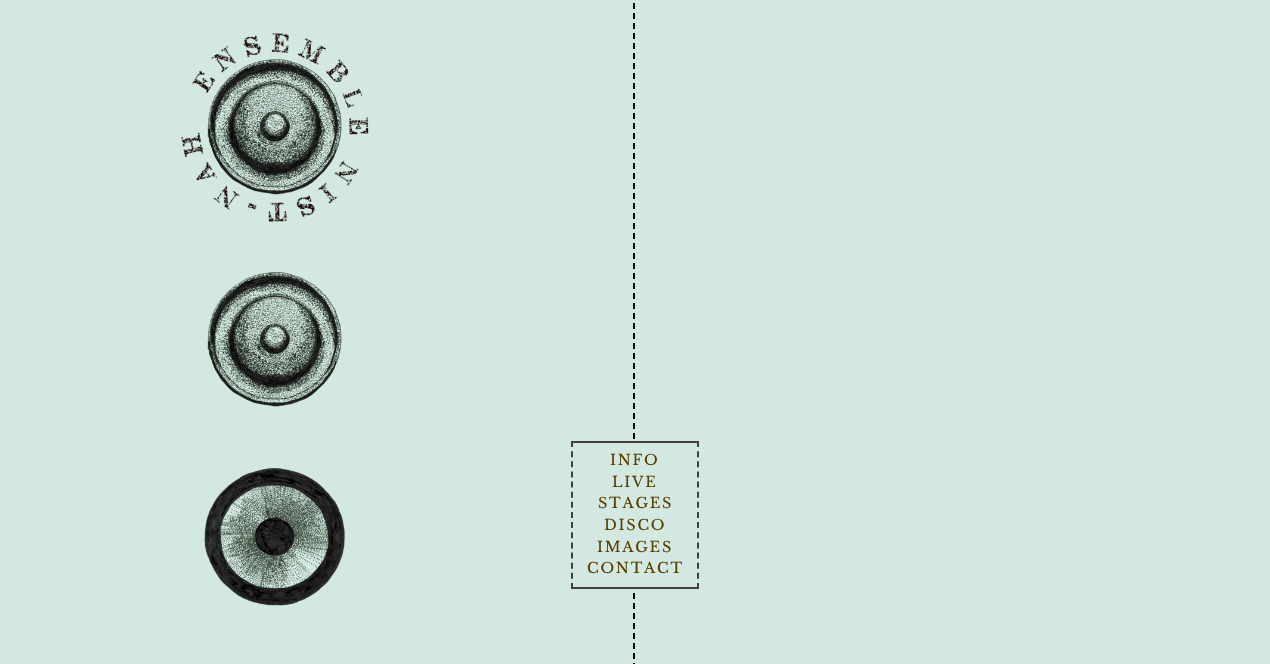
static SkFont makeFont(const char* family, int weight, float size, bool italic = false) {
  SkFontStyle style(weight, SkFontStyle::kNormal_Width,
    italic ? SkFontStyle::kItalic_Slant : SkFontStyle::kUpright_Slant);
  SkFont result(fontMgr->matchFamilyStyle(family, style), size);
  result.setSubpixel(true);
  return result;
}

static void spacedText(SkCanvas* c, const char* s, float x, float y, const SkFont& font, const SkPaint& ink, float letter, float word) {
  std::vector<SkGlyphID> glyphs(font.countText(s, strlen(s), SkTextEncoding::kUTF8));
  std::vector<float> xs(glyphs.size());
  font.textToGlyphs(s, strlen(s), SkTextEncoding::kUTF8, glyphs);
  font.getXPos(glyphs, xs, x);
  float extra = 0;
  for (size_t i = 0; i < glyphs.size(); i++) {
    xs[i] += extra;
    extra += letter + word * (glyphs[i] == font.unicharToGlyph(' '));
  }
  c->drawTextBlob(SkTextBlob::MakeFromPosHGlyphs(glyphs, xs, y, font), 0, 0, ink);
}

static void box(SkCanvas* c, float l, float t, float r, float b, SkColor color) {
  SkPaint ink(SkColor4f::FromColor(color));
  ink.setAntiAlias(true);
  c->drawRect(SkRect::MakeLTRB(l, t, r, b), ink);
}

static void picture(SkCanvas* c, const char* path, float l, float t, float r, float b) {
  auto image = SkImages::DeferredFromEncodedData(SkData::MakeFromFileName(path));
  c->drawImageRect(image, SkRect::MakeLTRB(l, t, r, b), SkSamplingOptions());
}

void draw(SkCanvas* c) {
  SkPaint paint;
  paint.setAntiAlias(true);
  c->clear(0xffd3e8e1);
  picture(c, "img_01.png", 181, 33, 369, 223);
  picture(c, "img_02.png", 207, 59, 342, 195);
  picture(c, "img_03.png", 207, 272, 342, 407);
  picture(c, "img_04.png", 204, 468, 345, 606);
  paint.setStyle(SkPaint::kStroke_Style);
  paint.setStrokeWidth(2);
  paint.setColor(0xff000000);
  paint.setPathEffect(SkDashPathEffect::Make({{6, 4}}, 0));
  c->drawPath(SkPathBuilder().moveTo(634, -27).lineTo(634, 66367).detach(), paint);
  paint.setPathEffect(nullptr);
  box(c, 633, 443, 635, 587, 0xffd3e8e1);
  box(c, 571, 441, 699, 443, 0xff404040);
  paint.setColor(0xff404040);
  paint.setPathEffect(SkDashPathEffect::Make({{6, 4.14f}}, 0));
  c->drawPath(SkPathBuilder().moveTo(698, 441).lineTo(698, 589).detach(), paint);
  paint.setPathEffect(nullptr);
  box(c, 571, 587, 699, 589, 0xff404040);
  paint.setPathEffect(SkDashPathEffect::Make({{6, 4.14f}}, 0));
  c->drawPath(SkPathBuilder().moveTo(572, 441).lineTo(572, 589).detach(), paint);
  paint.setPathEffect(nullptr);
  SkFont face1 = makeFont("Libre Baskerville", 400, 14.5f);
  paint.setStyle(SkPaint::kFill_Style);
  paint.setColor(0xff573f00);
  spacedText(c, "INFO", 610, 465, face1, paint, 1.75f, 0);
  spacedText(c, "LIVE", 612, 487, face1, paint, 1.75f, 0);
  spacedText(c, "STAGES", 598, 508, face1, paint, 1.75f, 0);
  spacedText(c, "DISCO", 604, 530, face1, paint, 1.75f, 0);
  spacedText(c, "IMAGES", 597, 552, face1, paint, 1.75f, 0);
  spacedText(c, "CONTACT", 587, 573, face1, paint, 1.75f, 0);
}
